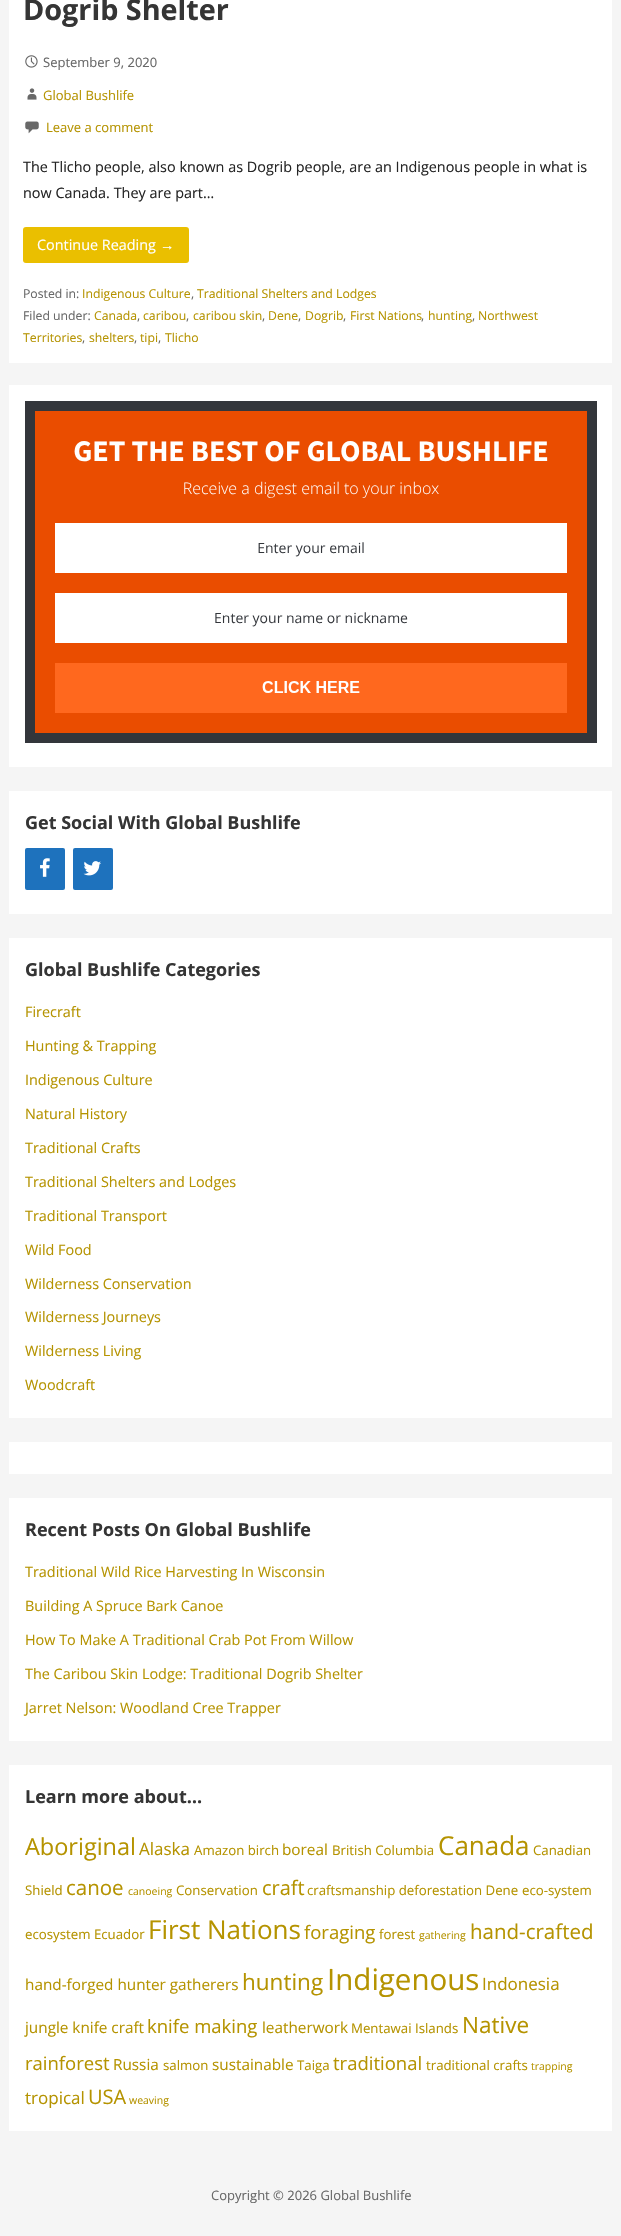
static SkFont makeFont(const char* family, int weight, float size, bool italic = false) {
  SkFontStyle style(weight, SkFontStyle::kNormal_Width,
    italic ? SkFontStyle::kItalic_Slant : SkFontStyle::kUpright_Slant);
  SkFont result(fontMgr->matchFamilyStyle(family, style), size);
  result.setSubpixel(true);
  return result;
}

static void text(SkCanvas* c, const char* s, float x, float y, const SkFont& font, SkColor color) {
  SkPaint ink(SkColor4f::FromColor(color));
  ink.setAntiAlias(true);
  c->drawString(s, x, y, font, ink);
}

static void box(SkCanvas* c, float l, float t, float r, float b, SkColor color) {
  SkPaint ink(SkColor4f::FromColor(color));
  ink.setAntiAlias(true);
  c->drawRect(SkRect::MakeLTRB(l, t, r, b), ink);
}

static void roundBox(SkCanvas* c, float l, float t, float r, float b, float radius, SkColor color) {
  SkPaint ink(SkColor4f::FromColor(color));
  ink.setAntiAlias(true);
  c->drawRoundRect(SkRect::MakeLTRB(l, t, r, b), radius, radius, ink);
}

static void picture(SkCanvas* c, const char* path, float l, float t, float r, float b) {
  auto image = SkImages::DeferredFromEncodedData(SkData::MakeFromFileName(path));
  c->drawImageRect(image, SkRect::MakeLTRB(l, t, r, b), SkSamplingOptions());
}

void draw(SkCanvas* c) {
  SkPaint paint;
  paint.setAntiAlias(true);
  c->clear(0xfff5f5f5);
  box(c, 9, 0, 612, 363, 0xffffffff);
  SkFont face1 = makeFont("Open Sans", 700, 28.75f);
  text(c, "Dogrib Shelter", 23, 20, face1, 0xff353535);
  picture(c, "img_01.png", 25, 55, 38, 68);
  SkFont face2 = makeFont("Open Sans", 400, 13);
  text(c, "September 9, 2020", 43, 67, face2, 0xff686868);
  picture(c, "img_02.png", 27, 88, 37, 100);
  text(c, "Global Bushlife", 43, 100, face2, 0xffb59300);
  picture(c, "img_03.png", 25, 121, 39, 134);
  text(c, "Leave a comment", 46, 132, face2, 0xffb59300);
  SkFont face3 = makeFont("Open Sans", 400, 14.4f);
  text(c, "The Tlicho people, also known as Dogrib people, are an Indigenous people in what is", 23, 172, face3, 0xff252525);
  text(c, "now Canada. They are part…", 23, 198, face3, 0xff252525);
  roundBox(c, 23, 227, 189, 263, 3, 0xffeabf00);
  text(c, "Continue Reading", 37, 250, face3, 0xffffffff);
  SkFont face4 = makeFont("Liberation Sans", 400, 14.4f);
  text(c, "→", 160, 250, face4, 0xffffffff);
  SkFont face5 = makeFont("Open Sans", 400, 12.25f);
  text(c, "Posted in:", 23, 298, face5, 0xff686868);
  text(c, "Indigenous Culture", 82, 298, face5, 0xffb59300);
  text(c, ",", 191, 298, face5, 0xff686868);
  text(c, "Traditional Shelters and Lodges", 197, 298, face5, 0xffb59300);
  text(c, "Filed under:", 23, 320, face5, 0xff686868);
  text(c, "Canada", 94, 320, face5, 0xffb59300);
  text(c, ",", 137, 320, face5, 0xff686868);
  text(c, "caribou", 143, 320, face5, 0xffb59300);
  text(c, ",", 186, 320, face5, 0xff686868);
  text(c, "caribou skin", 193, 320, face5, 0xffb59300);
  text(c, ",", 262, 320, face5, 0xff686868);
  text(c, "Dene", 268, 320, face5, 0xffb59300);
  text(c, ",", 298, 320, face5, 0xff686868);
  text(c, "Dogrib", 305, 320, face5, 0xffb59300);
  text(c, ",", 343, 320, face5, 0xff686868);
  text(c, "First Nations", 350, 320, face5, 0xffb59300);
  text(c, ",", 421, 320, face5, 0xff686868);
  text(c, "hunting", 428, 320, face5, 0xffb59300);
  text(c, ",", 472, 320, face5, 0xff686868);
  text(c, "Northwest", 478, 320, face5, 0xffb59300);
  text(c, "Territories", 23, 342, face5, 0xffb59300);
  text(c, ",", 82, 342, face5, 0xff686868);
  text(c, "shelters", 89, 342, face5, 0xffb59300);
  text(c, ",", 134, 342, face5, 0xff686868);
  text(c, "tipi", 140, 342, face5, 0xffb59300);
  text(c, ",", 158, 342, face5, 0xff686868);
  text(c, "Tlicho", 165, 342, face5, 0xffb59300);
  box(c, 9, 385, 612, 767, 0xffffffff);
  picture(c, "img_04.png", 25, 401, 597, 743);
  box(c, 9, 791, 612, 914, 0xffffffff);
  SkFont face6 = makeFont("Open Sans", 700, 18);
  text(c, "Get Social With Global Bushlife", 25, 829, face6, 0xff353535);
  roundBox(c, 25, 848, 65, 890, 2, 0xff1e72bd);
  picture(c, "img_05.png", 40, 858, 50, 877);
  roundBox(c, 73, 848, 113, 890, 2, 0xff1e72bd);
  picture(c, "img_06.png", 83, 861, 101, 876);
  box(c, 9, 938, 612, 1418, 0xffffffff);
  text(c, "Global Bushlife Categories", 25, 976, face6, 0xff353535);
  text(c, "Firecraft", 25, 1017, face3, 0xffb59300);
  text(c, "Hunting & Trapping", 25, 1051, face3, 0xffb59300);
  text(c, "Indigenous Culture", 25, 1085, face3, 0xffb59300);
  text(c, "Natural History", 25, 1119, face3, 0xffb59300);
  text(c, "Traditional Crafts", 25, 1153, face3, 0xffb59300);
  text(c, "Traditional Shelters and Lodges", 25, 1187, face3, 0xffb59300);
  text(c, "Traditional Transport", 25, 1221, face3, 0xffb59300);
  text(c, "Wild Food", 25, 1255, face3, 0xffb59300);
  text(c, "Wilderness Conservation", 25, 1289, face3, 0xffb59300);
  text(c, "Wilderness Journeys", 25, 1322, face3, 0xffb59300);
  text(c, "Wilderness Living", 25, 1356, face3, 0xffb59300);
  text(c, "Woodcraft", 25, 1390, face3, 0xffb59300);
  box(c, 9, 1442, 612, 1474, 0xffffffff);
  box(c, 9, 1498, 612, 1741, 0xffffffff);
  text(c, "Recent Posts On Global Bushlife", 25, 1536, face6, 0xff353535);
  text(c, "Traditional Wild Rice Harvesting In Wisconsin", 25, 1577, face3, 0xffb59300);
  text(c, "Building A Spruce Bark Canoe", 25, 1611, face3, 0xffb59300);
  text(c, "How To Make A Traditional Crab Pot From Willow", 25, 1645, face3, 0xffb59300);
  text(c, "The Caribou Skin Lodge: Traditional Dogrib Shelter", 25, 1679, face3, 0xffb59300);
  text(c, "Jarret Nelson: Woodland Cree Trapper", 25, 1713, face3, 0xffb59300);
  box(c, 9, 1765, 612, 2131, 0xffffffff);
  text(c, "Learn more about…", 25, 1803, face6, 0xff353535);
  SkFont face7 = makeFont("Open Sans", 400, 23.5f);
  text(c, "Aboriginal", 25, 1855, face7, 0xffb59300);
  SkFont face8 = makeFont("Open Sans", 400, 17);
  text(c, "Alaska", 139, 1855, face8, 0xffb59300);
  SkFont face9 = makeFont("Open Sans", 400, 13.25f);
  text(c, "Amazon birch", 194, 1855, face9, 0xffb59300);
  SkFont face10 = makeFont("Open Sans", 400, 15.3f);
  text(c, "boreal", 282, 1855, face10, 0xffb59300);
  text(c, "British Columbia", 332, 1855, face9, 0xffb59300);
  SkFont face11 = makeFont("Open Sans", 400, 26);
  text(c, "Canada", 438, 1855, face11, 0xffb59300);
  text(c, "Canadian", 533, 1855, face9, 0xffb59300);
  text(c, "Shield", 25, 1895, face9, 0xffb59300);
  SkFont face12 = makeFont("Open Sans", 400, 20.5f);
  text(c, "canoe", 66, 1895, face12, 0xffb59300);
  SkFont face13 = makeFont("Open Sans", 400, 10.5f);
  text(c, "canoeing", 128, 1895, face13, 0xffb59300);
  text(c, "Conservation", 176, 1895, face9, 0xffb59300);
  SkFont face14 = makeFont("Open Sans", 400, 20);
  text(c, "craft", 262, 1895, face14, 0xffb59300);
  text(c, "craftsmanship deforestation Dene", 307, 1895, face9, 0xffb59300);
  text(c, "eco-system", 522, 1895, face9, 0xffb59300);
  text(c, "ecosystem Ecuador", 25, 1939, face9, 0xffb59300);
  text(c, "First Nations", 148, 1939, face11, 0xffb59300);
  SkFont face15 = makeFont("Open Sans", 400, 18.5f);
  text(c, "foraging", 304, 1939, face15, 0xffb59300);
  text(c, "forest", 379, 1939, face9, 0xffb59300);
  text(c, "gathering", 419, 1939, face13, 0xffb59300);
  text(c, "hand-crafted", 470, 1939, face12, 0xffb59300);
  text(c, "hand-forged hunter gatherers", 25, 1990, face10, 0xffb59300);
  SkFont face16 = makeFont("Open Sans", 400, 22.5f);
  text(c, "hunting", 242, 1990, face16, 0xffb59300);
  SkFont face17 = makeFont("Open Sans", 400, 29.5f);
  text(c, "Indigenous", 327, 1990, face17, 0xffb59300);
  text(c, "Indonesia", 482, 1990, face8, 0xffb59300);
  text(c, "jungle knife craft", 25, 2033, face10, 0xffb59300);
  text(c, "knife making", 147, 2033, face15, 0xffb59300);
  text(c, "leatherwork", 262, 2033, face10, 0xffb59300);
  text(c, "Mentawai Islands", 351, 2033, face9, 0xffb59300);
  text(c, "Native", 462, 2033, face16, 0xffb59300);
  text(c, "rainforest", 25, 2070, face15, 0xffb59300);
  text(c, "Russia", 113, 2070, face10, 0xffb59300);
  text(c, "salmon", 163, 2070, face9, 0xffb59300);
  text(c, "sustainable", 212, 2070, face10, 0xffb59300);
  text(c, "Taiga", 297, 2070, face9, 0xffb59300);
  text(c, "traditional", 333, 2070, face15, 0xffb59300);
  text(c, "traditional crafts", 426, 2070, face9, 0xffb59300);
  text(c, "trapping", 531, 2070, face13, 0xffb59300);
  text(c, "tropical", 25, 2104, face8, 0xffb59300);
  text(c, "USA", 88, 2104, face14, 0xffb59300);
  text(c, "weaving", 129, 2104, face13, 0xffb59300);
  text(c, "Copyright © 2026 Global Bushlife", 211, 2200, face2, 0xff686868);
}
